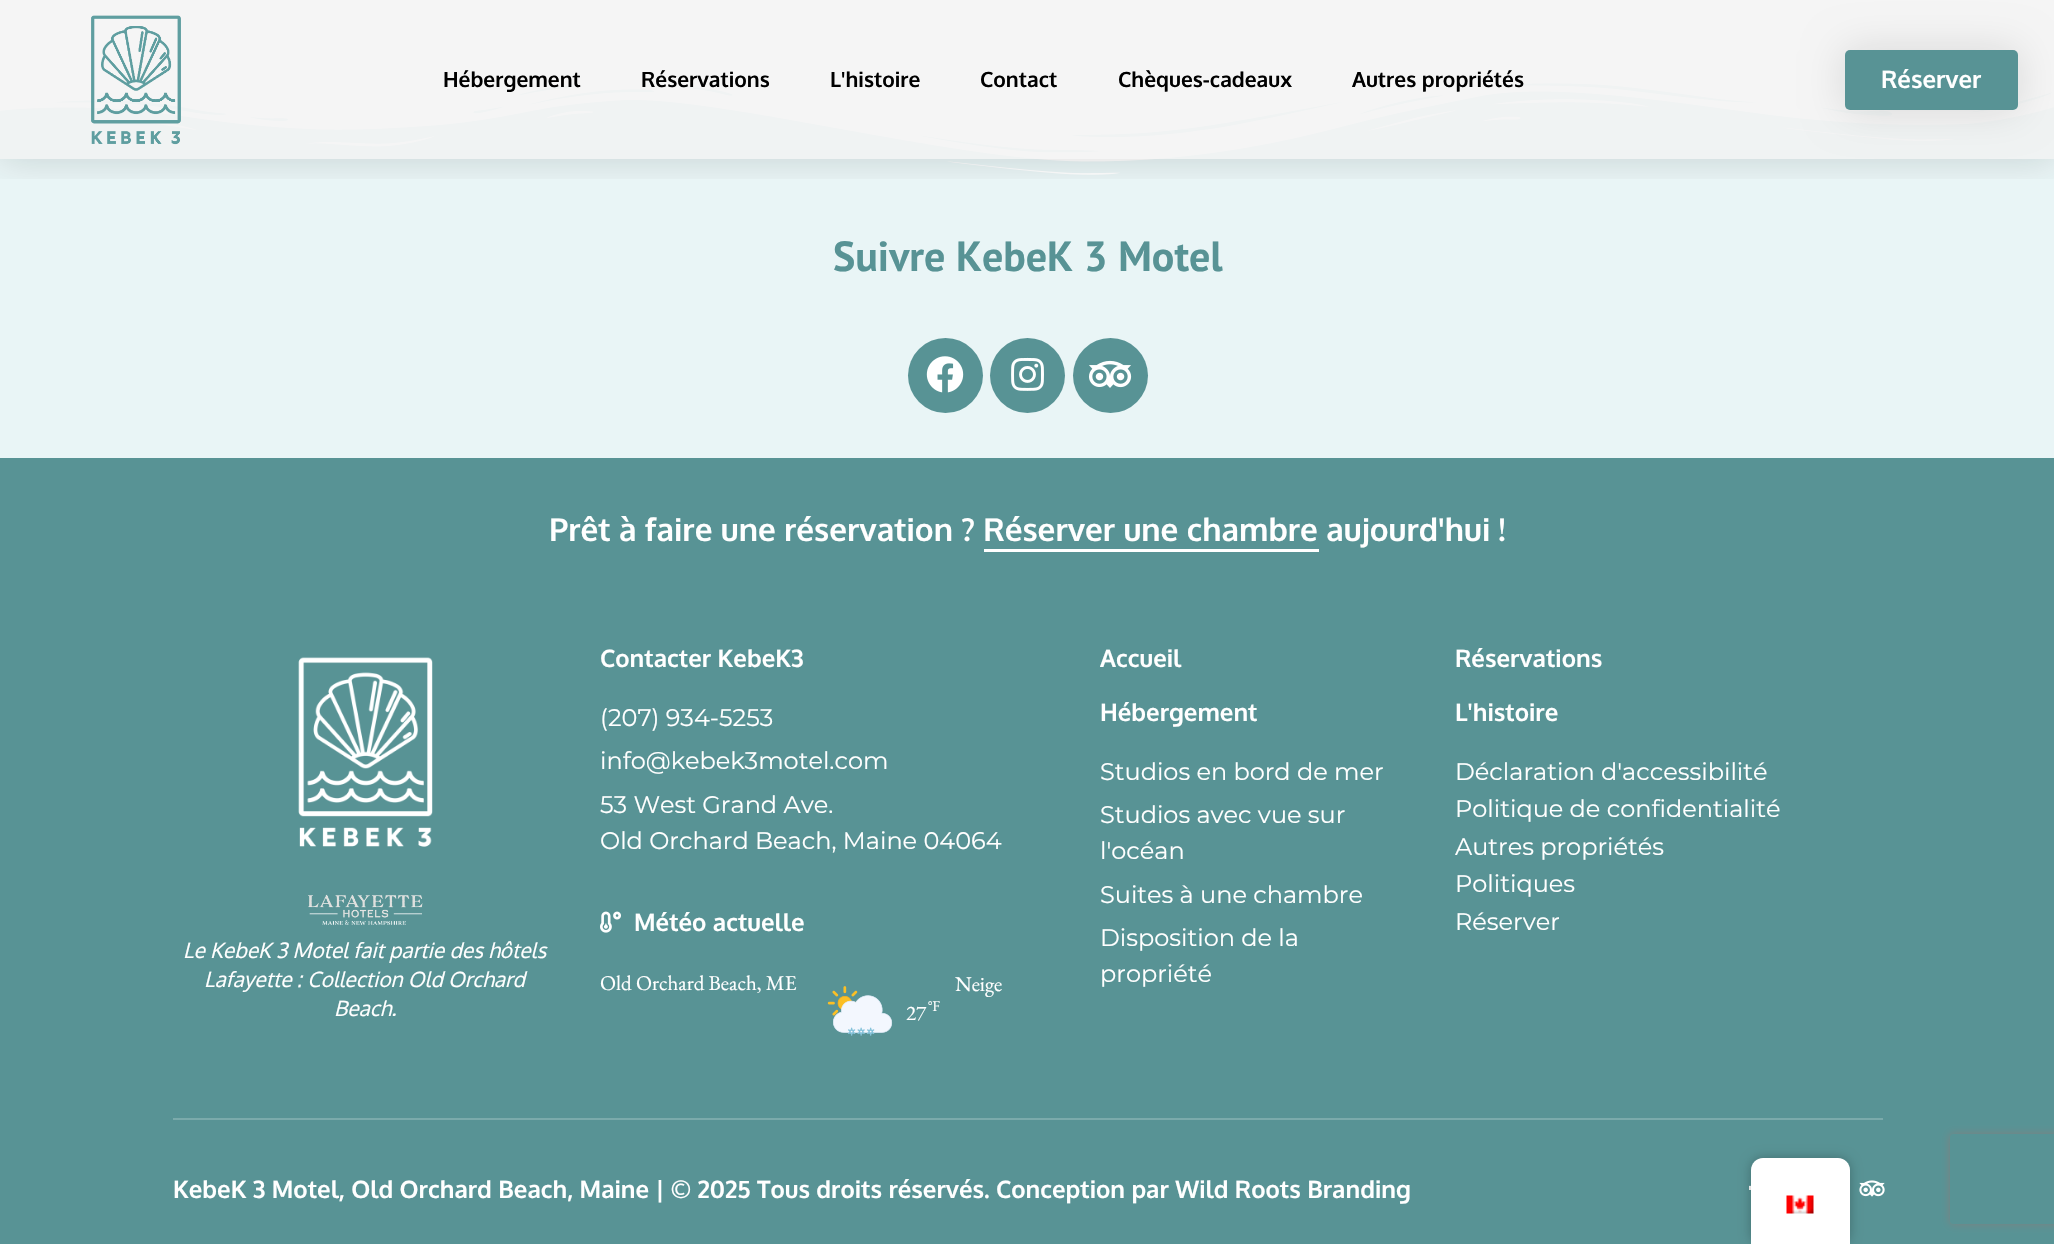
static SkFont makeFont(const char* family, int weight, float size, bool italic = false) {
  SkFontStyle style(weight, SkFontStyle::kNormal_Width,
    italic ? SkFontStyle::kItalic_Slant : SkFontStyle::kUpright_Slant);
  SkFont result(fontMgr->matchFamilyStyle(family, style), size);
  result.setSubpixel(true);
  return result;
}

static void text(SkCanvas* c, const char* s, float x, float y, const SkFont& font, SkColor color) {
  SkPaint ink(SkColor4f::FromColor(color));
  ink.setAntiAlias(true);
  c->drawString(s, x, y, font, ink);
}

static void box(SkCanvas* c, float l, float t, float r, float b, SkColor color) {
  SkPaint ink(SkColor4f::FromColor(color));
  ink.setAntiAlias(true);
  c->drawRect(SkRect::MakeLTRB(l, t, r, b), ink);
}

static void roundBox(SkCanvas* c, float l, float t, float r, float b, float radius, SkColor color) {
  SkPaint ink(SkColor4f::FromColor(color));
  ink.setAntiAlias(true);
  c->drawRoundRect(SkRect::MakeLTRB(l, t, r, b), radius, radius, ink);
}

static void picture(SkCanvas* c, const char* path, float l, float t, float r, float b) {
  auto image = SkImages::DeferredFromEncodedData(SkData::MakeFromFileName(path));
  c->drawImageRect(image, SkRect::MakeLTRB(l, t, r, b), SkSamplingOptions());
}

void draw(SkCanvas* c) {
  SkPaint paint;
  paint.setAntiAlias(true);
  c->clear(0xffffffff);
  box(c, 0, 83, 2054, 458, 0xffe9f5f6);
  picture(c, "img_02.png", 0, 71, 2054, 175);
  c->save();
  c->clipRect(SkRect::MakeLTRB(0, 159, 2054, 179));
  paint.setColor(0x26000000);
  paint.setMaskFilter(SkMaskFilter::MakeBlur(kNormal_SkBlurStyle, 18));
  c->drawRect(SkRect::MakeLTRB(0, 0, 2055, 159), paint);
  paint.setMaskFilter(nullptr);
  c->restore();
  box(c, 0, 0, 2054, 159, 0xbff2f2f2);
  picture(c, "img_01.png", 91, 15, 181, 145);
  SkFont face1 = makeFont("Oxygen", 700, 21);
  text(c, "Hébergement", 443, 87, face1, 0xff000000);
  text(c, "Réservations", 641, 87, face1, 0xff000000);
  text(c, "L'histoire", 830, 87, face1, 0xff000000);
  text(c, "Contact", 980, 87, face1, 0xff000000);
  text(c, "Chèques-cadeaux", 1118, 87, face1, 0xff000000);
  text(c, "Autres propriétés", 1352, 87, face1, 0xff000000);
  paint.setColor(0x1f000000);
  paint.setMaskFilter(SkMaskFilter::MakeBlur(kNormal_SkBlurStyle, 20));
  c->drawRoundRect(SkRect::MakeLTRB(1845, 50, 2018, 110), 5, 5, paint);
  paint.setMaskFilter(nullptr);
  roundBox(c, 1845, 50, 2018, 110, 5, 0xff589395);
  SkFont face2 = makeFont("Oxygen", 700, 24);
  text(c, "Réserver", 1881, 88, face2, 0xffffffff);
  SkFont face3 = makeFont("PT Sans", 700, 42);
  text(c, "Suivre KebeK 3 Motel", 833, 271, face3, 0xff589395);
  paint.setColor(0xff589395);
  c->drawCircle(945.5f, 375.5f, 37.5f, paint);
  picture(c, "img_03.png", 926, 356, 964, 393);
  c->drawCircle(1027.5f, 375.5f, 37.5f, paint);
  picture(c, "img_04.png", 1011, 357, 1044, 391);
  c->drawCircle(1110.5f, 375.5f, 37.5f, paint);
  picture(c, "img_05.png", 1089, 360, 1132, 388);
  box(c, 0, 458, 2054, 1244, 0xff589395);
  SkFont face4 = makeFont("Oxygen", 700, 31.5f);
  text(c, "Prêt à faire une réservation ? Réserver une chambre aujourd'hui !", 549, 541, face4, 0xffffffff);
  box(c, 984, 549, 1319, 552, 0xffffffff);
  picture(c, "img_06.png", 298, 657, 433, 847);
  picture(c, "img_07.png", 308, 894, 423, 925);
  SkFont face5 = makeFont("Oxygen", 400, 21, true);
  text(c, "Le KebeK 3 Motel fait partie des hôtels", 183, 958, face5, 0xffffffff);
  text(c, "Lafayette : Collection Old Orchard", 204, 987, face5, 0xffffffff);
  text(c, "Beach.", 334, 1016, face5, 0xffffffff);
  text(c, "Contacter KebeK3", 600, 667, face2, 0xffffffff);
  SkFont face6 = makeFont("Montserrat", 400, 24);
  text(c, "(207) 934-5253", 600, 726, face6, 0xffffffff);
  text(c, "info@kebek3motel.com", 600, 769, face6, 0xffffffff);
  text(c, "53 West Grand Ave.", 600, 813, face6, 0xffffffff);
  text(c, "Old Orchard Beach, Maine 04064", 600, 849, face6, 0xffffffff);
  picture(c, "img_08.png", 600, 911, 621, 933);
  text(c, "Météo actuelle", 634, 931, face2, 0xffffffff);
  SkFont face7 = makeFont("EB Garamond", 400, 21);
  text(c, "Old Orchard Beach, ME", 600, 990, face7, 0xffffffff);
  text(c, "Neige", 955, 991, face7, 0xffffffff);
  picture(c, "img_09.png", 827, 986, 893, 1036);
  text(c, "27", 906, 1020, face7, 0xffffffff);
  SkFont face8 = makeFont("EB Garamond", 400, 15);
  text(c, "°F", 928, 1011, face8, 0xffffffff);
  text(c, "Accueil", 1100, 667, face2, 0xffffffff);
  text(c, "Hébergement", 1100, 721, face2, 0xffffffff);
  text(c, "Studios en bord de mer", 1100, 780, face6, 0xffffffff);
  text(c, "Studios avec vue sur", 1100, 823, face6, 0xffffffff);
  text(c, "l'océan", 1100, 859, face6, 0xffffffff);
  text(c, "Suites à une chambre", 1100, 903, face6, 0xffffffff);
  text(c, "Disposition de la", 1100, 946, face6, 0xffffffff);
  text(c, "propriété", 1100, 982, face6, 0xffffffff);
  text(c, "Réservations", 1455, 667, face2, 0xffffffff);
  text(c, "L'histoire", 1455, 721, face2, 0xffffffff);
  text(c, "Déclaration d'accessibilité", 1455, 780, face6, 0xffffffff);
  text(c, "Politique de confidentialité", 1455, 817, face6, 0xffffffff);
  text(c, "Autres propriétés", 1455, 855, face6, 0xffffffff);
  text(c, "Politiques", 1455, 892, face6, 0xffffffff);
  text(c, "Réserver", 1455, 930, face6, 0xffffffff);
  box(c, 173, 1118, 1883, 1120, 0xff7baaab);
  text(c, "KebeK 3 Motel, Old Orchard Beach, Maine | © 2025 Tous droits réservés. Conception par Wild Roots Branding", 173, 1198, face2, 0xffffffff);
  picture(c, "img_10.png", 1749, 1185, 1751, 1190);
  picture(c, "img_11.png", 1859, 1180, 1885, 1197);
  paint.setColor(0x40000000);
  paint.setMaskFilter(SkMaskFilter::MakeBlur(kNormal_SkBlurStyle, 6));
  c->drawRoundRect(SkRect::MakeLTRB(1751, 1158, 1850, 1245), 12, 12, paint);
  paint.setMaskFilter(nullptr);
  paint.setColor(0xffffffff);
  c->drawPath(SkPathBuilder().moveTo(1763, 1158).lineTo(1838, 1158).cubicTo(1844.5f, 1158, 1850, 1163.5f, 1850, 1170).lineTo(1850, 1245).lineTo(1751, 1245).lineTo(1751, 1170).cubicTo(1751, 1163.5f, 1756.5f, 1158, 1763, 1158).close().detach(), paint);
  picture(c, "img_12.png", 1786, 1195, 1814, 1214);
  c->save();
  c->clipPath(SkPathBuilder(SkPathFillType::kEvenOdd).moveTo(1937, 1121).lineTo(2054, 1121).lineTo(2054, 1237).lineTo(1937, 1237).close().moveTo(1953, 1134).lineTo(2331, 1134).cubicTo(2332.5f, 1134, 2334, 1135.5f, 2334, 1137).lineTo(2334, 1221).cubicTo(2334, 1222.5f, 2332.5f, 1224, 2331, 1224).lineTo(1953, 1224).cubicTo(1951.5f, 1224, 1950, 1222.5f, 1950, 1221).lineTo(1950, 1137).cubicTo(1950, 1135.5f, 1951.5f, 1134, 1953, 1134).close().detach(), true);
  paint.setColor(0xff808080);
  paint.setMaskFilter(SkMaskFilter::MakeBlur(kNormal_SkBlurStyle, 4));
  c->drawRoundRect(SkRect::MakeLTRB(1950, 1134, 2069, 1224), 3, 3, paint);
  paint.setMaskFilter(nullptr);
  c->restore();
}
